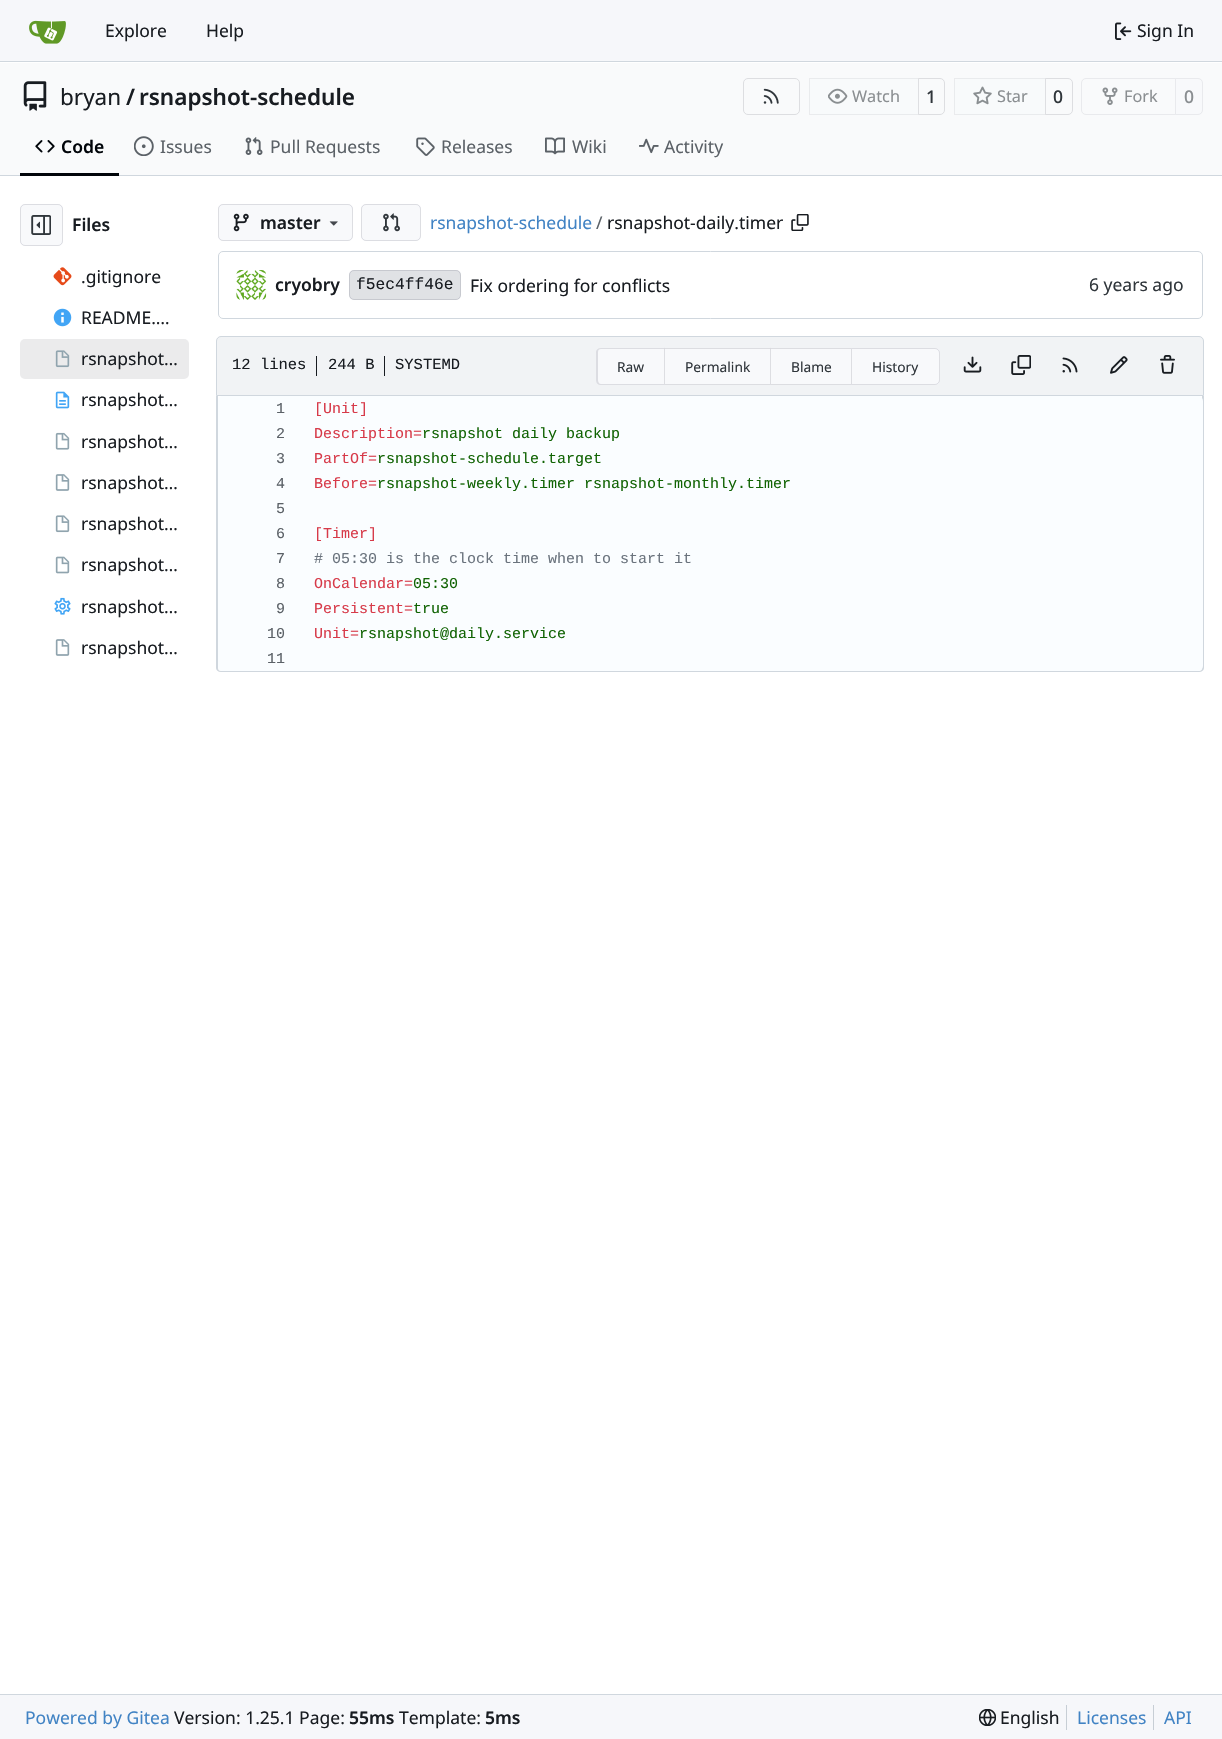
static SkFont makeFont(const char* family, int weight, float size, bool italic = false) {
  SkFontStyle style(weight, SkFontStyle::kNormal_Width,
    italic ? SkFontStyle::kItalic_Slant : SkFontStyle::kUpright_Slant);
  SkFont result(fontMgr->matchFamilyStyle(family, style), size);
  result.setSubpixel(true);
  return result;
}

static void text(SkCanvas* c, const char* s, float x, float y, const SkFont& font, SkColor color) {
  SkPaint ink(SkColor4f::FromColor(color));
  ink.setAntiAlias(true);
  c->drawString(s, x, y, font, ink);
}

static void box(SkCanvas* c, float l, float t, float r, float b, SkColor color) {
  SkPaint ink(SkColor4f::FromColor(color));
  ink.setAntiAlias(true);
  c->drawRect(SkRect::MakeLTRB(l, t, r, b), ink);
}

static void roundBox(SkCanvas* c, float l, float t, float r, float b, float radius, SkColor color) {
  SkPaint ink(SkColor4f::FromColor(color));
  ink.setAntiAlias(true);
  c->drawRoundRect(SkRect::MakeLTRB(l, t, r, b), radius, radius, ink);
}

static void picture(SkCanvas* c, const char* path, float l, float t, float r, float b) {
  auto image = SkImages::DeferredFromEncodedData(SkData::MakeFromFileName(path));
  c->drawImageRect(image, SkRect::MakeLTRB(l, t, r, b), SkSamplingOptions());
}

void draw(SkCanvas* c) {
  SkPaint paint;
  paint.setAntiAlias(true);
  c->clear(0xffffffff);
  box(c, 0, 0, 1222, 61, 0xfff6f7fa);
  box(c, 0, 61, 1222, 62, 0xffd0d7de);
  picture(c, "img_01.png", 29, 20, 66, 44);
  SkFont face1 = makeFont("Noto Sans", 400, 17.5f);
  text(c, "Explore", 105, 37, face1, 0xff181c21);
  text(c, "Help", 206, 37, face1, 0xff181c21);
  picture(c, "img_02.png", 1115, 22, 1132, 40);
  text(c, "Sign In", 1137, 37, face1, 0xff181c21);
  box(c, 0, 63, 1222, 175, 0xfff9fafb);
  picture(c, "img_03.png", 23, 81, 47, 111);
  SkFont face2 = makeFont("Noto Sans", 400, 22.5f);
  text(c, "bryan", 60, 105, face2, 0xff181c21);
  SkFont face3 = makeFont("Noto Sans", 600, 22.5f);
  text(c, "/", 126, 105, face3, 0xff181c21);
  text(c, "rsnapshot-schedule", 139, 105, face3, 0xff181c21);
  paint.setStyle(SkPaint::kStroke_Style);
  paint.setStrokeWidth(1);
  paint.setColor(0xffdddee1);
  c->drawRoundRect(SkRect::MakeLTRB(743.5f, 78.5f, 799.5f, 114.5f), 4.5f, 4.5f, paint);
  picture(c, "img_04.png", 763, 88, 779, 104);
  c->drawPath(SkPathBuilder().moveTo(918.5f, 78.5f).lineTo(940, 78.5f).cubicTo(942.5f, 78.5f, 944.5f, 80.5f, 944.5f, 83).lineTo(944.5f, 110).cubicTo(944.5f, 112.5f, 942.5f, 114.5f, 940, 114.5f).lineTo(918.5f, 114.5f).close().detach(), paint);
  paint.setStyle(SkPaint::kFill_Style);
  paint.setColor(0x8cf8f9fb);
  c->drawPath(SkPathBuilder().moveTo(814, 78).lineTo(919, 78).lineTo(919, 115).lineTo(814, 115).cubicTo(811, 115, 809, 113, 809, 110).lineTo(809, 83).cubicTo(809, 80, 811, 78, 814, 78).close().detach(), paint);
  paint.setStyle(SkPaint::kStroke_Style);
  paint.setColor(0x0f000017);
  c->drawRect(SkRect::MakeLTRB(809.5f, 78.5f, 918.5f, 114.5f), paint);
  picture(c, "img_05.png", 828, 88, 848, 104);
  SkFont face4 = makeFont("Noto Sans", 400, 16.25f);
  text(c, "Watch", 852, 102, face4, 0xff8a8e91);
  SkFont face5 = makeFont("Noto Sans", 500, 17.5f);
  text(c, "1", 926, 103, face5, 0xff30363b);
  paint.setColor(0xffdddee1);
  c->drawPath(SkPathBuilder().moveTo(1045.5f, 78.5f).lineTo(1068, 78.5f).cubicTo(1070.5f, 78.5f, 1072.5f, 80.5f, 1072.5f, 83).lineTo(1072.5f, 110).cubicTo(1072.5f, 112.5f, 1070.5f, 114.5f, 1068, 114.5f).lineTo(1045.5f, 114.5f).close().detach(), paint);
  paint.setStyle(SkPaint::kFill_Style);
  paint.setColor(0x8cf8f9fb);
  c->drawPath(SkPathBuilder().moveTo(959, 78).lineTo(1046, 78).lineTo(1046, 115).lineTo(959, 115).cubicTo(956, 115, 954, 113, 954, 110).lineTo(954, 83).cubicTo(954, 80, 956, 78, 959, 78).close().detach(), paint);
  paint.setStyle(SkPaint::kStroke_Style);
  paint.setColor(0x0f000017);
  c->drawRect(SkRect::MakeLTRB(954.5f, 78.5f, 1045.5f, 114.5f), paint);
  picture(c, "img_06.png", 973, 86, 992, 105);
  text(c, "Star", 997, 102, face4, 0xff8a8e91);
  text(c, "0", 1053, 103, face5, 0xff30363b);
  paint.setColor(0xffe9eaed);
  c->drawPath(SkPathBuilder().moveTo(1086, 78.5f).lineTo(1175.5f, 78.5f).lineTo(1175.5f, 114.5f).lineTo(1086, 114.5f).cubicTo(1083.5f, 114.5f, 1081.5f, 112.5f, 1081.5f, 110).lineTo(1081.5f, 83).cubicTo(1081.5f, 80.5f, 1083.5f, 78.5f, 1086, 78.5f).close().detach(), paint);
  picture(c, "img_07.png", 1102, 87, 1118, 105);
  text(c, "Fork", 1124, 102, face4, 0xff8a8e91);
  paint.setStyle(SkPaint::kFill_Style);
  paint.setColor(0xfff8f9fb);
  c->drawPath(SkPathBuilder().moveTo(1175.5f, 78.5f).lineTo(1198, 78.5f).cubicTo(1200.5f, 78.5f, 1202.5f, 80.5f, 1202.5f, 83).lineTo(1202.5f, 110).cubicTo(1202.5f, 112.5f, 1200.5f, 114.5f, 1198, 114.5f).lineTo(1175.5f, 114.5f).close().detach(), paint);
  paint.setStyle(SkPaint::kStroke_Style);
  paint.setColor(0xffe9eaed);
  c->drawPath(SkPathBuilder().moveTo(1175.5f, 78.5f).lineTo(1198, 78.5f).cubicTo(1200.5f, 78.5f, 1202.5f, 80.5f, 1202.5f, 83).lineTo(1202.5f, 110).cubicTo(1202.5f, 112.5f, 1200.5f, 114.5f, 1198, 114.5f).lineTo(1175.5f, 114.5f).close().detach(), paint);
  text(c, "0", 1184, 103, face5, 0xff8a8e91);
  box(c, 0, 175, 1222, 176, 0xffd0d7de);
  box(c, 20, 173, 119, 176, 0xff01050a);
  picture(c, "img_08.png", 35, 140, 55, 153);
  SkFont face6 = makeFont("Noto Sans", 600, 17.5f);
  text(c, "Code", 61, 153, face6, 0xff01050a);
  picture(c, "img_09.png", 134, 136, 154, 156);
  text(c, "Issues", 160, 153, face1, 0xff5b6167);
  picture(c, "img_10.png", 245, 137, 263, 155);
  text(c, "Pull Requests", 270, 153, face1, 0xff5b6167);
  picture(c, "img_11.png", 416, 137, 435, 156);
  text(c, "Releases", 441, 153, face1, 0xff5b6167);
  picture(c, "img_12.png", 545, 137, 565, 155);
  text(c, "Wiki", 572, 153, face1, 0xff5b6167);
  picture(c, "img_13.png", 639, 138, 659, 154);
  text(c, "Activity", 664, 153, face1, 0xff5b6167);
  roundBox(c, 20, 204, 63, 246, 5, 0xfff8f9fb);
  paint.setColor(0x1c000017);
  c->drawRoundRect(SkRect::MakeLTRB(20.5f, 204.5f, 62.5f, 245.5f), 4.5f, 4.5f, paint);
  picture(c, "img_14.png", 31, 215, 51, 235);
  text(c, "Files", 72, 231, face6, 0xff181c21);
  picture(c, "img_15.png", 53, 267, 72, 286);
  text(c, ".gitignore", 81, 283, face1, 0xff181c21);
  picture(c, "img_16.png", 53, 308, 72, 327);
  text(c, "README.…", 81, 324, face1, 0xff181c21);
  roundBox(c, 20, 339, 189, 379, 5, 0xffebebec);
  picture(c, "img_17.png", 55, 350, 70, 368);
  text(c, "rsnapshot…", 81, 365, face1, 0xff181c21);
  picture(c, "img_18.png", 55, 391, 70, 409);
  text(c, "rsnapshot…", 81, 406, face1, 0xff181c21);
  picture(c, "img_19.png", 55, 432, 70, 450);
  text(c, "rsnapshot…", 81, 448, face1, 0xff181c21);
  picture(c, "img_20.png", 55, 474, 70, 491);
  text(c, "rsnapshot…", 81, 489, face1, 0xff181c21);
  picture(c, "img_21.png", 55, 515, 70, 533);
  text(c, "rsnapshot…", 81, 530, face1, 0xff181c21);
  picture(c, "img_22.png", 55, 556, 70, 574);
  text(c, "rsnapshot…", 81, 571, face1, 0xff181c21);
  picture(c, "img_23.png", 54, 597, 71, 615);
  text(c, "rsnapshot…", 81, 613, face1, 0xff181c21);
  picture(c, "img_20.png", 55, 639, 70, 656);
  text(c, "rsnapshot…", 81, 654, face1, 0xff181c21);
  roundBox(c, 218, 204, 353, 241, 5, 0xfff8f9fb);
  c->drawRoundRect(SkRect::MakeLTRB(218.5f, 204.5f, 352.5f, 240.5f), 4.5f, 4.5f, paint);
  picture(c, "img_24.png", 233, 213, 249, 232);
  text(c, "master", 260, 229, face6, 0xff181c21);
  picture(c, "img_25.png", 329, 221, 338, 226);
  roundBox(c, 361, 204, 421, 241, 5, 0xfff8f9fb);
  c->drawRoundRect(SkRect::MakeLTRB(361.5f, 204.5f, 420.5f, 240.5f), 4.5f, 4.5f, paint);
  picture(c, "img_26.png", 383, 213, 400, 232);
  text(c, "rsnapshot-schedule", 430, 229, face1, 0xff4183c4);
  text(c, "/", 596, 229, face1, 0xff5b6167);
  text(c, "rsnapshot-daily.timer", 607, 229, face1, 0xff181c21);
  picture(c, "img_27.png", 791, 214, 809, 231);
  paint.setColor(0xffd0d7de);
  c->drawRoundRect(SkRect::MakeLTRB(218.5f, 251.5f, 1202.5f, 318.5f), 4.5f, 4.5f, paint);
  picture(c, "img_28.png", 236, 270, 267, 300);
  text(c, "cryobry", 275, 291, face6, 0xff181c21);
  roundBox(c, 349, 270, 461, 300, 5, 0xffe0e2e5);
  paint.setColor(0x1c000017);
  c->drawRoundRect(SkRect::MakeLTRB(349.5f, 270.5f, 460.5f, 299.5f), 4.5f, 4.5f, paint);
  SkFont face7 = makeFont("Liberation Mono", 400, 16.25f);
  text(c, "f5ec4ff46e", 356, 289, face7, 0xff181c21);
  text(c, "Fix ordering for conflicts", 470, 292, face1, 0xff181c21);
  text(c, "6 years ago", 1089, 291, face1, 0xff30363b);
  paint.setStyle(SkPaint::kFill_Style);
  paint.setColor(0xfff1f3f5);
  c->drawPath(SkPathBuilder().moveTo(221, 336.5f).lineTo(1199, 336.5f).cubicTo(1201.5f, 336.5f, 1203.5f, 338.5f, 1203.5f, 341).lineTo(1203.5f, 395.5f).lineTo(216.5f, 395.5f).lineTo(216.5f, 341).cubicTo(216.5f, 338.5f, 218.5f, 336.5f, 221, 336.5f).close().detach(), paint);
  paint.setStyle(SkPaint::kStroke_Style);
  paint.setColor(0xffd0d7de);
  c->drawPath(SkPathBuilder().moveTo(221, 336.5f).lineTo(1199, 336.5f).cubicTo(1201.5f, 336.5f, 1203.5f, 338.5f, 1203.5f, 341).lineTo(1203.5f, 395.5f).lineTo(216.5f, 395.5f).lineTo(216.5f, 341).cubicTo(216.5f, 338.5f, 218.5f, 336.5f, 221, 336.5f).close().detach(), paint);
  SkFont face8 = makeFont("Liberation Mono", 400, 15.5f);
  text(c, "12 lines", 232, 369, face8, 0xff181c21);
  box(c, 316, 356, 317, 376, 0xff181c21);
  text(c, "244 B", 328, 369, face8, 0xff181c21);
  box(c, 384, 356, 385, 376, 0xff181c21);
  text(c, "SYSTEMD", 395, 369, face8, 0xff181c21);
  paint.setStyle(SkPaint::kFill_Style);
  paint.setColor(0xfff8f9fb);
  c->drawPath(SkPathBuilder().moveTo(601, 348).lineTo(664, 348).lineTo(664, 385).lineTo(601, 385).cubicTo(598, 385, 596, 383, 596, 380).lineTo(596, 353).cubicTo(596, 350, 598, 348, 601, 348).close().detach(), paint);
  paint.setColor(0x1c000017);
  c->drawPath(SkPathBuilder(SkPathFillType::kEvenOdd).moveTo(601, 348).lineTo(664, 348).lineTo(664, 385).lineTo(601, 385).cubicTo(598, 385, 596, 383, 596, 380).lineTo(596, 352).cubicTo(596, 350, 598, 348, 601, 348).close().moveTo(601, 349).lineTo(664, 349).lineTo(664, 384).lineTo(601, 384).cubicTo(599, 384, 598, 382, 598, 380).lineTo(598, 352).cubicTo(598, 350, 599, 349, 601, 349).close().detach(), paint);
  SkFont face9 = makeFont("Noto Sans", 400, 13.75f);
  text(c, "Raw", 617, 372, face9, 0xff30363b);
  box(c, 664, 348, 851, 385, 0xfff8f9fb);
  paint.setColor(0xffdcdde1);
  c->drawPath(SkPathBuilder().moveTo(664, 348).lineTo(770, 348).lineTo(770, 349).lineTo(665, 349).close().detach(), paint);
  c->drawPath(SkPathBuilder().moveTo(770, 385).lineTo(664, 385).lineTo(665, 384).lineTo(770, 384).close().detach(), paint);
  paint.setColor(0x1c000017);
  c->drawPath(SkPathBuilder().moveTo(664, 385).lineTo(664, 347.5f).lineTo(665, 349).lineTo(665, 384).close().detach(), paint);
  text(c, "Permalink", 685, 372, face9, 0xff30363b);
  paint.setColor(0xffdcdde1);
  c->drawPath(SkPathBuilder().moveTo(770, 348).lineTo(851, 348).lineTo(851, 349).lineTo(771, 349).close().detach(), paint);
  c->drawPath(SkPathBuilder().moveTo(851, 385).lineTo(770, 385).lineTo(771, 384).lineTo(851, 384).close().detach(), paint);
  paint.setColor(0x1c000017);
  c->drawPath(SkPathBuilder().moveTo(770, 385).lineTo(770, 347.5f).lineTo(771, 349).lineTo(771, 384).close().detach(), paint);
  text(c, "Blame", 791, 372, face9, 0xff30363b);
  paint.setColor(0xfff8f9fb);
  c->drawPath(SkPathBuilder().moveTo(851, 348).lineTo(935, 348).cubicTo(938, 348, 940, 350, 940, 353).lineTo(940, 380).cubicTo(940, 383, 938, 385, 935, 385).lineTo(851, 385).close().detach(), paint);
  paint.setStyle(SkPaint::kStroke_Style);
  paint.setColor(0x1c000017);
  c->drawPath(SkPathBuilder().moveTo(851.5f, 348.5f).lineTo(935, 348.5f).cubicTo(937.5f, 348.5f, 939.5f, 350.5f, 939.5f, 353).lineTo(939.5f, 380).cubicTo(939.5f, 382.5f, 937.5f, 384.5f, 935, 384.5f).lineTo(851.5f, 384.5f).close().detach(), paint);
  text(c, "History", 872, 372, face9, 0xff30363b);
  picture(c, "img_29.png", 963, 356, 982, 373);
  picture(c, "img_30.png", 1011, 355, 1031, 375);
  picture(c, "img_31.png", 1062, 357, 1078, 373);
  picture(c, "img_32.png", 1110, 356, 1128, 374);
  picture(c, "img_33.png", 1160, 355, 1175, 374);
  paint.setStyle(SkPaint::kFill_Style);
  paint.setColor(0xffd0d7de);
  c->drawPath(SkPathBuilder(SkPathFillType::kEvenOdd).moveTo(216, 396).lineTo(1204, 396).lineTo(1204, 668).cubicTo(1204, 670, 1202, 672, 1199, 672).lineTo(221, 672).cubicTo(218, 672, 216, 670, 216, 668).close().moveTo(218, 396).lineTo(1202, 396).lineTo(1202, 668).cubicTo(1202, 670, 1201, 671, 1199, 671).lineTo(221, 671).cubicTo(219, 671, 218, 670, 218, 668).close().detach(), paint);
  roundBox(c, 218, 396, 1203, 671, 5, 0xfffafdff);
  SkFont face10 = makeFont("Liberation Mono", 400, 15);
  text(c, "1", 276, 413, face10, 0xff5b6167);
  text(c, "[Unit]", 314, 413, face10, 0xffd73a49);
  text(c, "2", 276, 438, face10, 0xff5b6167);
  text(c, "Description=", 314, 438, face10, 0xffd73a49);
  text(c, "rsnapshot daily backup", 422, 438, face10, 0xff106303);
  text(c, "3", 276, 463, face10, 0xff5b6167);
  text(c, "PartOf=", 314, 463, face10, 0xffd73a49);
  text(c, "rsnapshot-schedule.target", 377, 463, face10, 0xff106303);
  text(c, "4", 276, 488, face10, 0xff5b6167);
  text(c, "Before=", 314, 488, face10, 0xffd73a49);
  text(c, "rsnapshot-weekly.timer rsnapshot-monthly.timer", 377, 488, face10, 0xff106303);
  text(c, "5", 276, 513, face10, 0xff5b6167);
  text(c, "6", 276, 538, face10, 0xff5b6167);
  text(c, "[Timer]", 314, 538, face10, 0xffd73a49);
  text(c, "7", 276, 563, face10, 0xff5b6167);
  text(c, "# 05:30 is the clock time when to start it", 314, 563, face10, 0xff6a737d);
  text(c, "8", 276, 588, face10, 0xff5b6167);
  text(c, "OnCalendar=", 314, 588, face10, 0xffd73a49);
  text(c, "05:30", 413, 588, face10, 0xff106303);
  text(c, "9", 276, 613, face10, 0xff5b6167);
  text(c, "Persistent=", 314, 613, face10, 0xffd73a49);
  text(c, "true", 413, 613, face10, 0xff106303);
  text(c, "10", 267, 638, face10, 0xff5b6167);
  text(c, "Unit=", 314, 638, face10, 0xffd73a49);
  text(c, "rsnapshot@daily.service", 359, 638, face10, 0xff106303);
  text(c, "11", 267, 663, face10, 0xff5b6167);
  box(c, 0, 1695, 1222, 1739, 0xfff6f7fa);
  box(c, 0, 1694, 1222, 1695, 0xffd0d7de);
  text(c, "Powered by Gitea", 25, 1724, face1, 0xff4183c4);
  text(c, "Version: 1.25.1 Page:", 174, 1724, face1, 0xff181c21);
  text(c, "55ms", 349, 1724, face6, 0xff181c21);
  text(c, "Template:", 399, 1724, face1, 0xff181c21);
  text(c, "5ms", 485, 1724, face6, 0xff181c21);
  picture(c, "img_34.png", 979, 1709, 996, 1726);
  text(c, "English", 1000, 1724, face1, 0xff181c21);
  box(c, 1066, 1705, 1067, 1730, 0xffc7ced5);
  text(c, "Licenses", 1077, 1724, face1, 0xff4183c4);
  box(c, 1153, 1705, 1154, 1730, 0xffc7ced5);
  text(c, "API", 1164, 1724, face1, 0xff4183c4);
}
